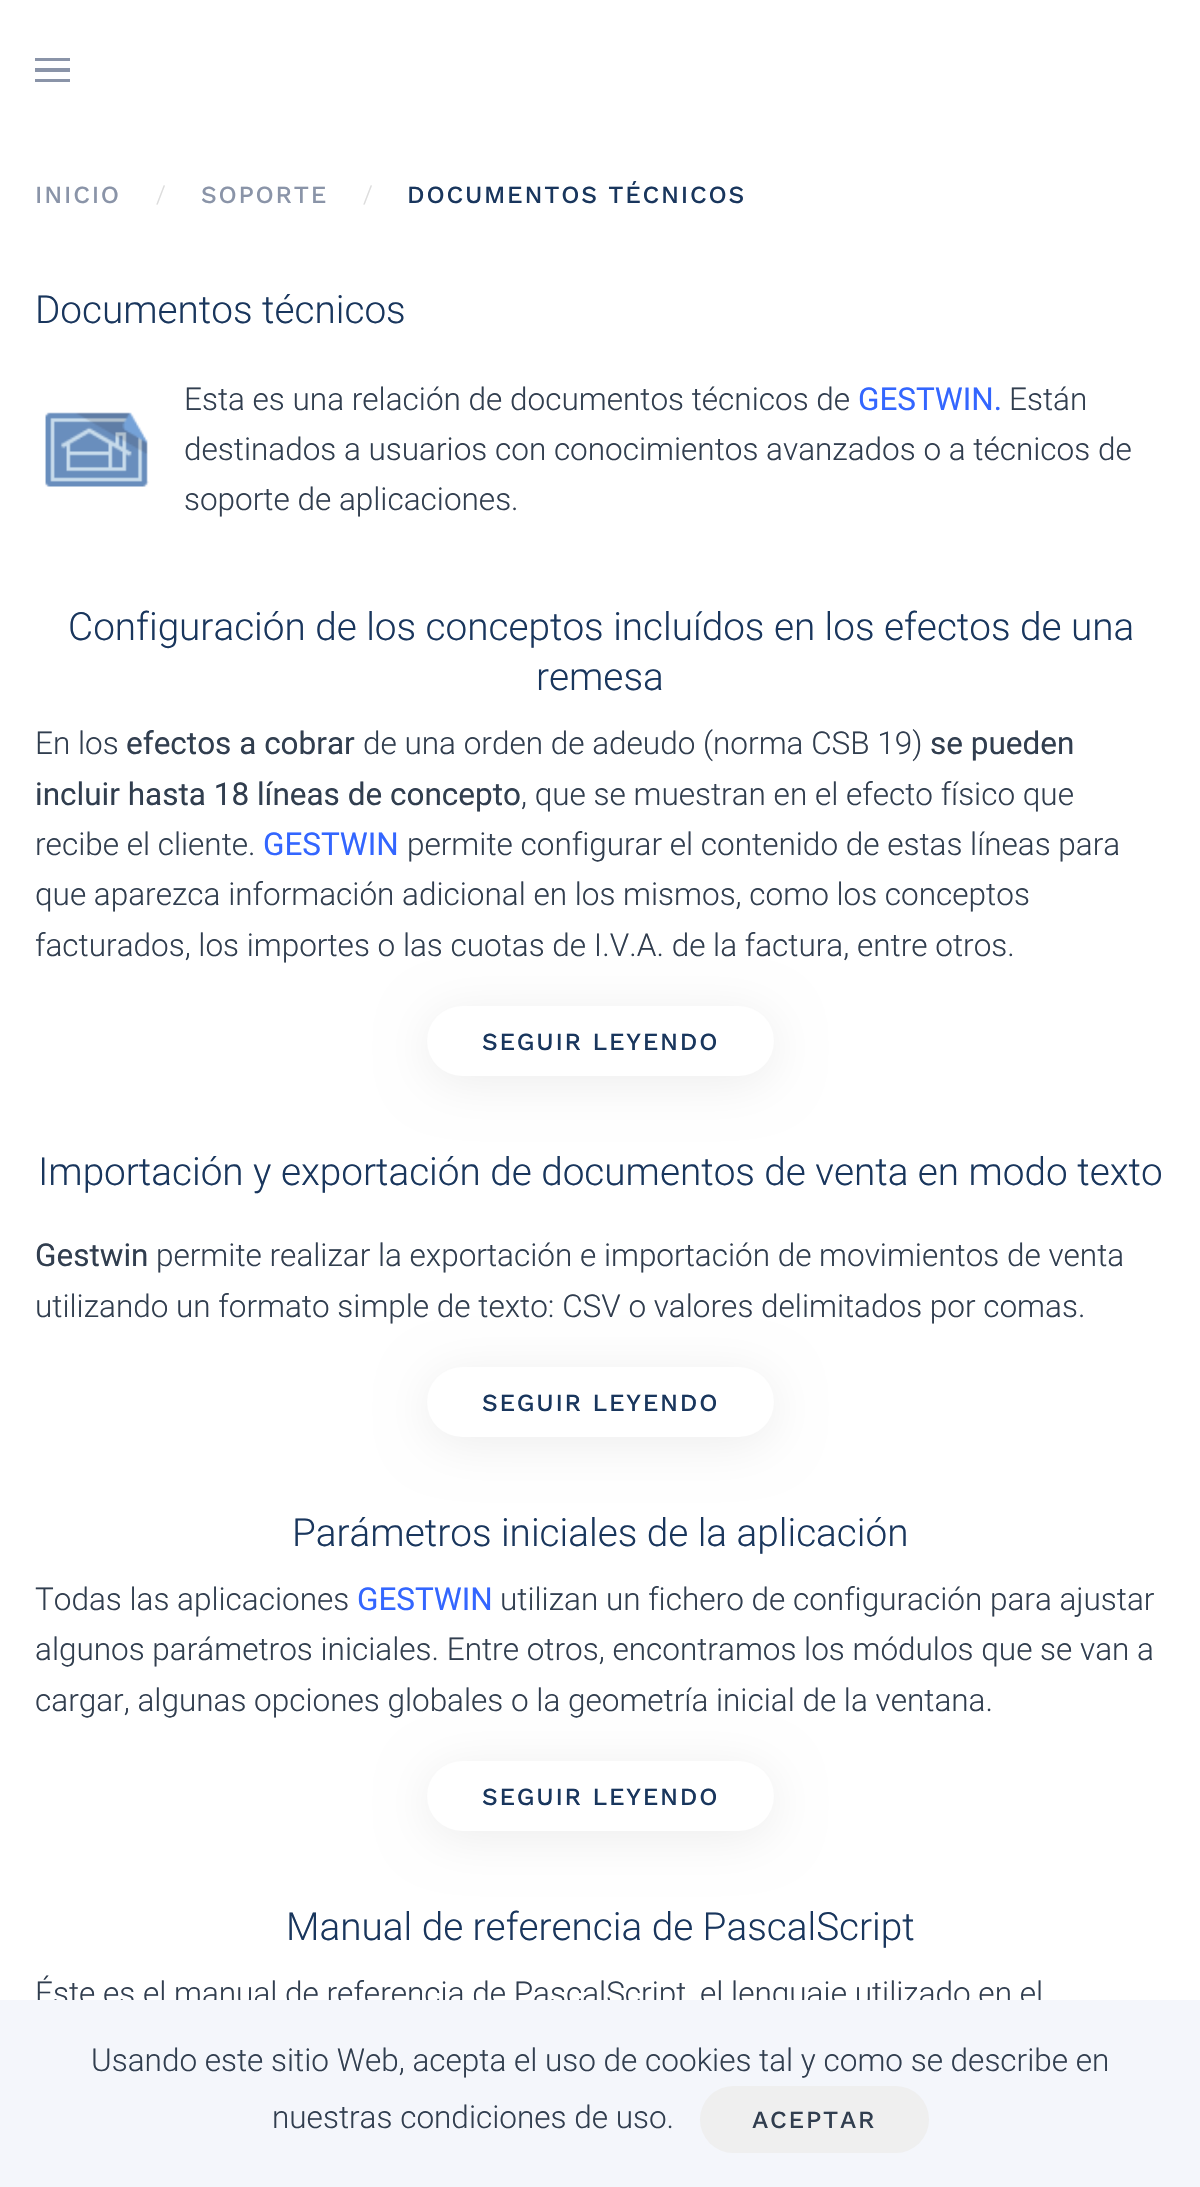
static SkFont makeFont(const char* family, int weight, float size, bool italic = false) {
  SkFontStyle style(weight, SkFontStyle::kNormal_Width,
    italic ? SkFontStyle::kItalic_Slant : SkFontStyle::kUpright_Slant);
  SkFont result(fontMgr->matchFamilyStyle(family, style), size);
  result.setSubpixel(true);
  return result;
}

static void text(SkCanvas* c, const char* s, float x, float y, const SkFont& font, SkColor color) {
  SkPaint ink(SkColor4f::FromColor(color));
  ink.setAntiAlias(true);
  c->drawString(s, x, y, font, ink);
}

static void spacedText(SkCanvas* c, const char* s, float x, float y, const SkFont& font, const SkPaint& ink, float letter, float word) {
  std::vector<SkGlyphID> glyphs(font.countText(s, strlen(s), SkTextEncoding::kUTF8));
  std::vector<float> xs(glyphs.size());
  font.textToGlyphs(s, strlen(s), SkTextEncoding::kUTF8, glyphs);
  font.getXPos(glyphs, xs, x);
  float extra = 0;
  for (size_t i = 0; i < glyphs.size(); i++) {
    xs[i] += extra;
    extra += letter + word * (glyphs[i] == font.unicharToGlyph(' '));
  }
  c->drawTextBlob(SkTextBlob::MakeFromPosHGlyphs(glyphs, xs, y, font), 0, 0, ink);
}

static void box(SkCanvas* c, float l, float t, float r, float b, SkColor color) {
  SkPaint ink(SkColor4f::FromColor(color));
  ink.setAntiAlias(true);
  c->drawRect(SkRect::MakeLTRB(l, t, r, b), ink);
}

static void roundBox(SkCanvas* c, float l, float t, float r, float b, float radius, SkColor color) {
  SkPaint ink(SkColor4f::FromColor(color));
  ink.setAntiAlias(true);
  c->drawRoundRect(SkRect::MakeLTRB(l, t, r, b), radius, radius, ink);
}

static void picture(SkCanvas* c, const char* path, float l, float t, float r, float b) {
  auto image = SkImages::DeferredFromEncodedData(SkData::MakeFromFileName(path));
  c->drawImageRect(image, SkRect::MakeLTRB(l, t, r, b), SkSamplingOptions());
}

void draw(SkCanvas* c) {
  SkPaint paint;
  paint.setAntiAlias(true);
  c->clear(0xffffffff);
  box(c, 35, 58, 70, 61, 0xff8a94a8);
  box(c, 35, 68, 70, 72, 0xff8a94a8);
  box(c, 35, 79, 70, 82, 0xff8a94a8);
  SkFont face1 = makeFont("Work Sans", 500, 24.5f);
  paint.setColor(0xff8a94a8);
  spacedText(c, "INICIO", 35, 203, face1, paint, 1.75f, 0);
  SkFont face2 = makeFont("Roboto", 300, 24.5f);
  text(c, "/", 156, 203, face2, 0xffdcdcdc);
  spacedText(c, "SOPORTE", 201, 203, face1, paint, 1.75f, 0);
  text(c, "/", 363, 203, face2, 0xffdcdcdc);
  paint.setColor(0xff19365d);
  spacedText(c, "DOCUMENTOS TÉCNICOS", 407, 203, face1, paint, 1.75f, 0);
  SkFont face3 = makeFont("Roboto", 300, 38.7f);
  text(c, "Documentos técnicos", 35, 323, face3, 0xff19365d);
  picture(c, "img_01.png", 45, 412, 149, 487);
  SkFont face4 = makeFont("Roboto", 300, 31.5f);
  text(c, "Esta es una relación de documentos técnicos de", 184, 410, face4, 0xff313e4f);
  SkFont face5 = makeFont("Roboto", 400, 31.5f);
  text(c, "GESTWIN.", 858, 410, face5, 0xff3366ff);
  text(c, "Están", 1009, 410, face4, 0xff313e4f);
  text(c, "destinados a usuarios con conocimientos avanzados o a técnicos de", 184, 460, face4, 0xff313e4f);
  text(c, "soporte de aplicaciones.", 184, 510, face4, 0xff313e4f);
  text(c, "Configuración de los conceptos incluídos en los efectos de una", 68, 640, face3, 0xff19365d);
  text(c, "remesa", 536, 690, face3, 0xff19365d);
  text(c, "En los", 35, 754, face4, 0xff313e4f);
  text(c, "efectos a cobrar", 126, 754, face5, 0xff313e4f);
  text(c, "de una orden de adeudo (norma CSB 19)", 363, 754, face4, 0xff313e4f);
  text(c, "se pueden", 930, 754, face5, 0xff313e4f);
  text(c, "incluir hasta 18 líneas de concepto", 35, 805, face5, 0xff313e4f);
  text(c, ", que se muestran en el efecto físico que", 521, 805, face4, 0xff313e4f);
  text(c, "recibe el cliente.", 35, 855, face4, 0xff313e4f);
  text(c, "GESTWIN", 263, 855, face5, 0xff3366ff);
  text(c, "permite configurar el contenido de estas líneas para", 407, 855, face4, 0xff313e4f);
  text(c, "que aparezca información adicional en los mismos, como los conceptos", 35, 905, face4, 0xff313e4f);
  text(c, "facturados, los importes o las cuotas de I.V.A. de la factura, entre otros.", 35, 956, face4, 0xff313e4f);
  paint.setColor(0x12000000);
  paint.setMaskFilter(SkMaskFilter::MakeBlur(kNormal_SkBlurStyle, 24.5f));
  c->drawRoundRect(SkRect::MakeLTRB(427, 1013, 774, 1083), 35, 35, paint);
  paint.setMaskFilter(nullptr);
  roundBox(c, 427, 1006, 774, 1076, 35, 0xffffffff);
  paint.setColor(0xff19365d);
  spacedText(c, "SEGUIR LEYENDO", 482, 1050, face1, paint, 1.75f, 0);
  text(c, "Importación y exportación de documentos de venta en modo texto", 38, 1185, face3, 0xff19365d);
  text(c, "Gestwin", 35, 1266, face5, 0xff313e4f);
  text(c, "permite realizar la exportación e importación de movimientos de venta", 156, 1266, face4, 0xff313e4f);
  text(c, "utilizando un formato simple de texto: CSV o valores delimitados por comas.", 35, 1317, face4, 0xff313e4f);
  paint.setColor(0x12000000);
  paint.setMaskFilter(SkMaskFilter::MakeBlur(kNormal_SkBlurStyle, 24.5f));
  c->drawRoundRect(SkRect::MakeLTRB(427, 1374, 774, 1444), 35, 35, paint);
  paint.setMaskFilter(nullptr);
  roundBox(c, 427, 1367, 774, 1437, 35, 0xffffffff);
  paint.setColor(0xff19365d);
  spacedText(c, "SEGUIR LEYENDO", 482, 1411, face1, paint, 1.75f, 0);
  text(c, "Parámetros iniciales de la aplicación", 292, 1546, face3, 0xff19365d);
  text(c, "Todas las aplicaciones", 35, 1610, face4, 0xff313e4f);
  text(c, "GESTWIN", 357, 1610, face5, 0xff3366ff);
  text(c, "utilizan un fichero de configuración para ajustar", 500, 1610, face4, 0xff313e4f);
  text(c, "algunos parámetros iniciales. Entre otros, encontramos los módulos que se van a", 35, 1660, face4, 0xff313e4f);
  text(c, "cargar, algunas opciones globales o la geometría inicial de la ventana.", 35, 1711, face4, 0xff313e4f);
  paint.setColor(0x12000000);
  paint.setMaskFilter(SkMaskFilter::MakeBlur(kNormal_SkBlurStyle, 24.5f));
  c->drawRoundRect(SkRect::MakeLTRB(427, 1768, 774, 1838), 35, 35, paint);
  paint.setMaskFilter(nullptr);
  roundBox(c, 427, 1761, 774, 1831, 35, 0xffffffff);
  paint.setColor(0xff19365d);
  spacedText(c, "SEGUIR LEYENDO", 482, 1805, face1, paint, 1.75f, 0);
  text(c, "Manual de referencia de PascalScript", 286, 1940, face3, 0xff19365d);
  text(c, "Éste es el manual de referencia de PascalScript, el lenguaje utilizado en el", 35, 2004, face4, 0xff313e4f);
  box(c, 0, 2000, 1200, 2187, 0xfff4f6fb);
  text(c, "Usando este sitio Web, acepta el uso de cookies tal y como se describe en", 91, 2071, face4, 0xff313e4f);
  text(c, "nuestras condiciones de uso.", 272, 2128, face4, 0xff313e4f);
  roundBox(c, 700, 2086, 929, 2153, 33.5f, 0xffefefef);
  paint.setColor(0xff313e4f);
  spacedText(c, "ACEPTAR", 752, 2128, face1, paint, 1.75f, 0);
}
